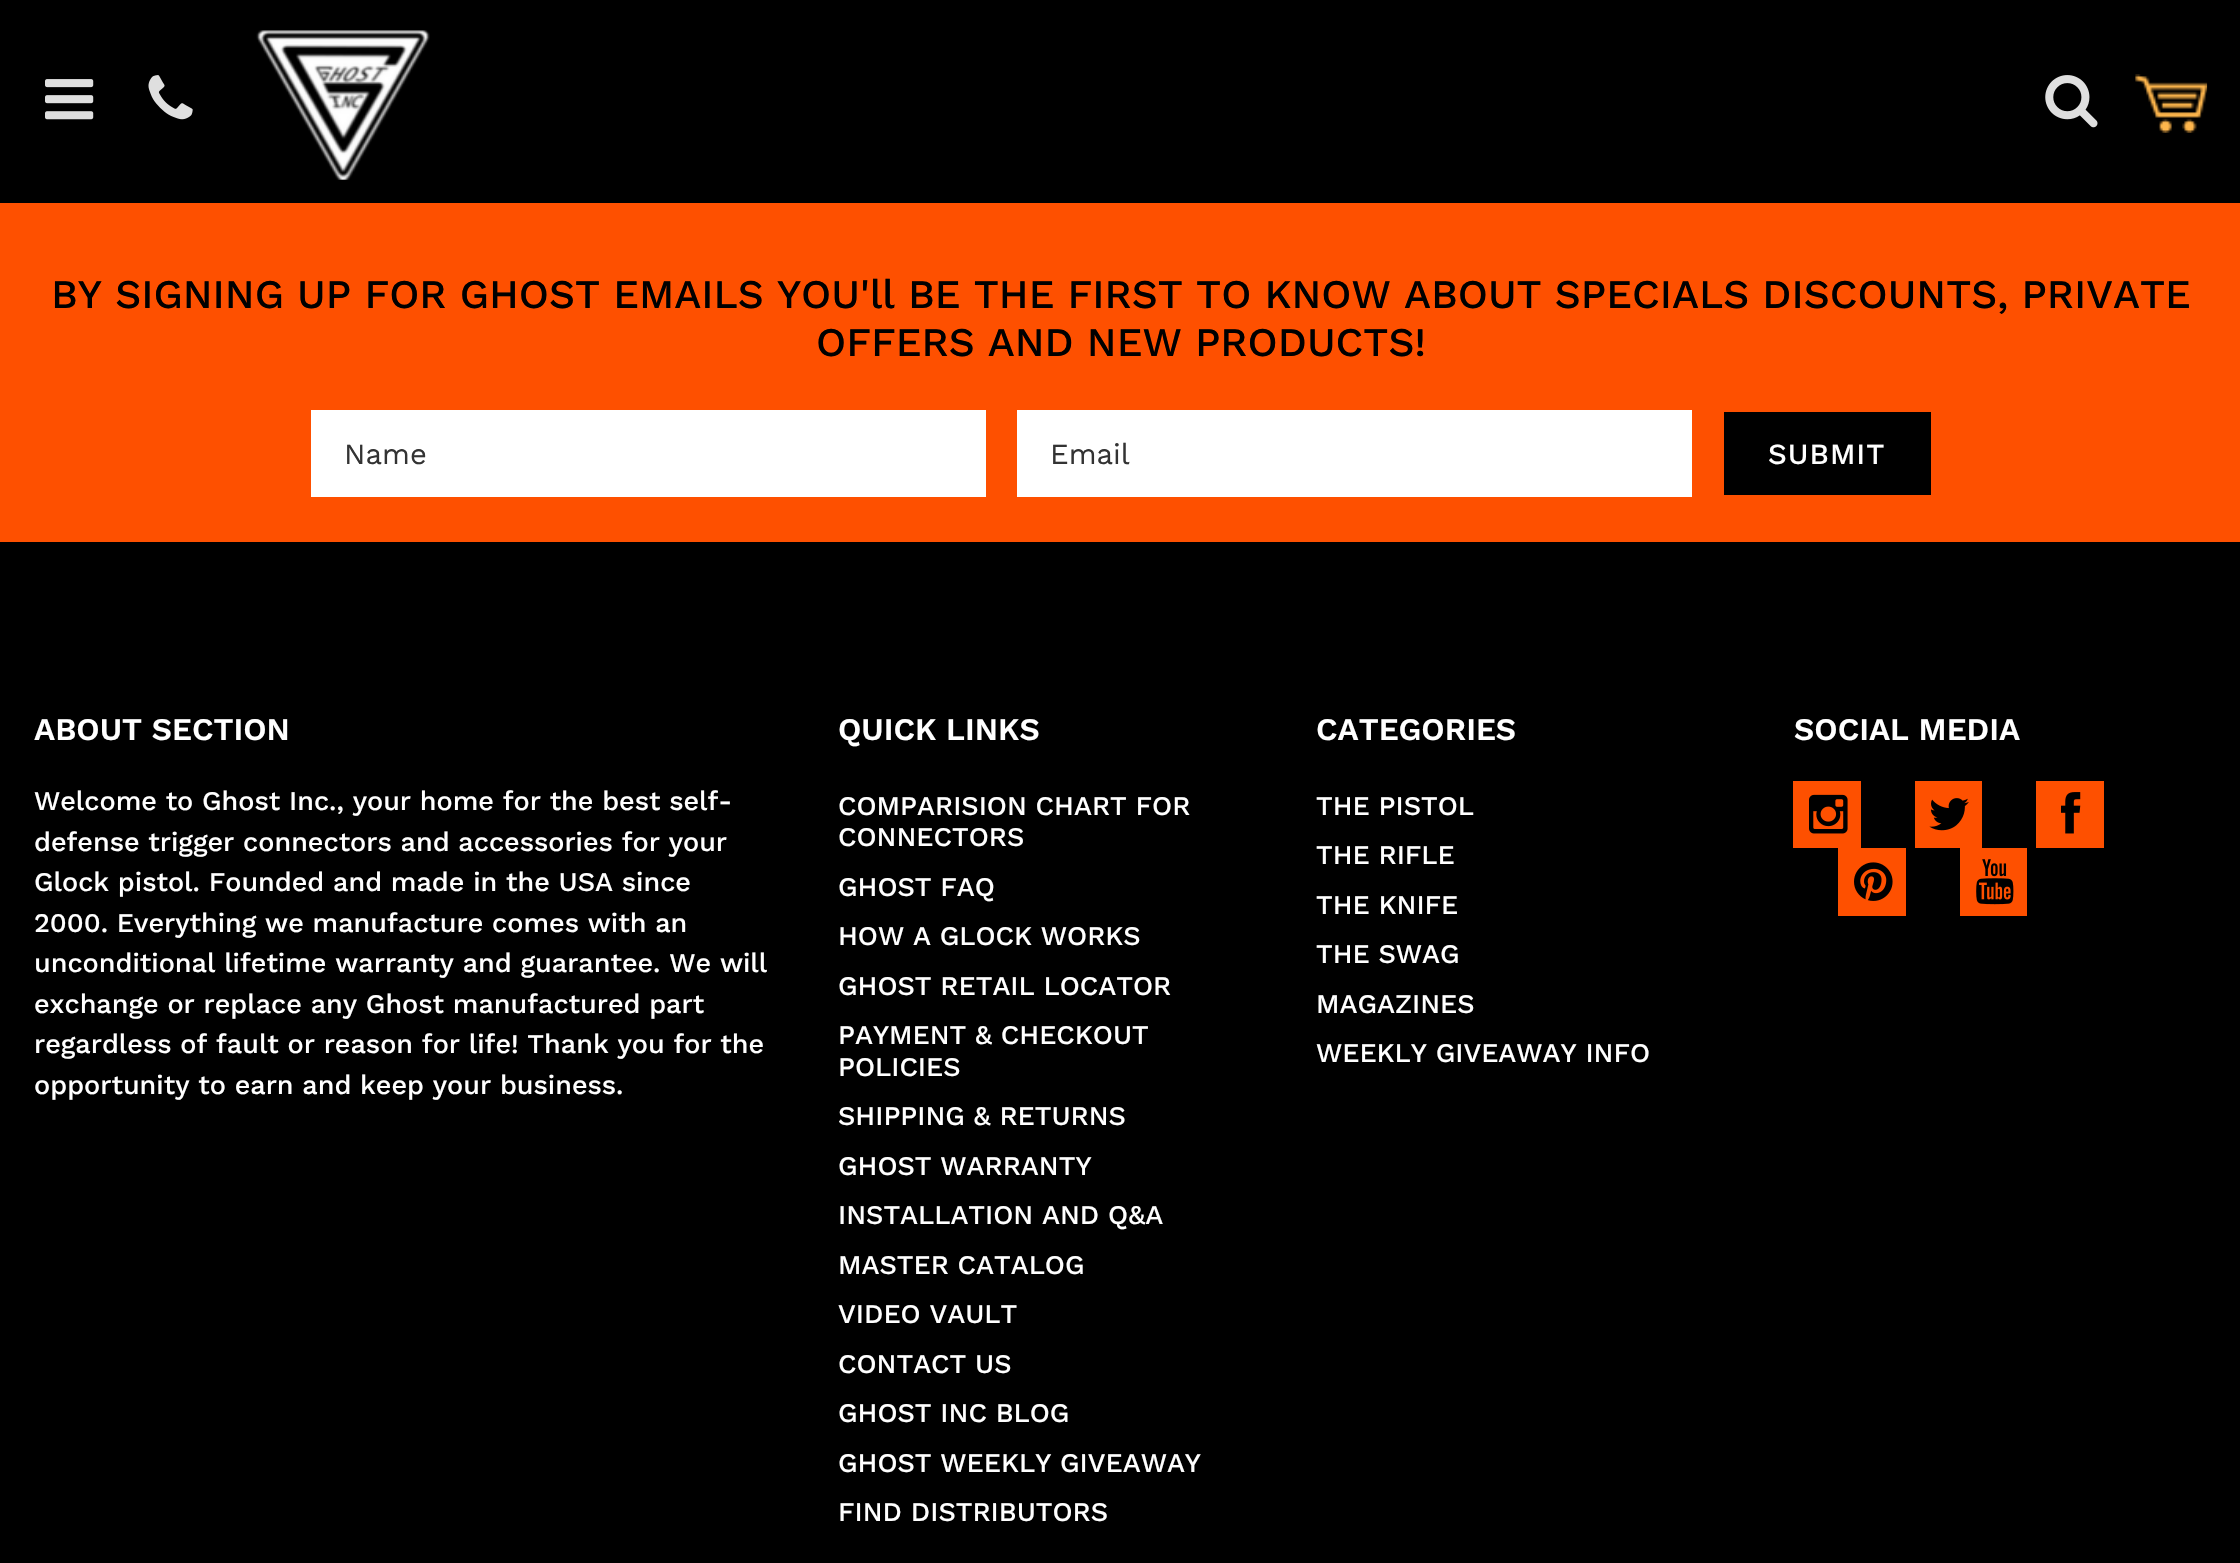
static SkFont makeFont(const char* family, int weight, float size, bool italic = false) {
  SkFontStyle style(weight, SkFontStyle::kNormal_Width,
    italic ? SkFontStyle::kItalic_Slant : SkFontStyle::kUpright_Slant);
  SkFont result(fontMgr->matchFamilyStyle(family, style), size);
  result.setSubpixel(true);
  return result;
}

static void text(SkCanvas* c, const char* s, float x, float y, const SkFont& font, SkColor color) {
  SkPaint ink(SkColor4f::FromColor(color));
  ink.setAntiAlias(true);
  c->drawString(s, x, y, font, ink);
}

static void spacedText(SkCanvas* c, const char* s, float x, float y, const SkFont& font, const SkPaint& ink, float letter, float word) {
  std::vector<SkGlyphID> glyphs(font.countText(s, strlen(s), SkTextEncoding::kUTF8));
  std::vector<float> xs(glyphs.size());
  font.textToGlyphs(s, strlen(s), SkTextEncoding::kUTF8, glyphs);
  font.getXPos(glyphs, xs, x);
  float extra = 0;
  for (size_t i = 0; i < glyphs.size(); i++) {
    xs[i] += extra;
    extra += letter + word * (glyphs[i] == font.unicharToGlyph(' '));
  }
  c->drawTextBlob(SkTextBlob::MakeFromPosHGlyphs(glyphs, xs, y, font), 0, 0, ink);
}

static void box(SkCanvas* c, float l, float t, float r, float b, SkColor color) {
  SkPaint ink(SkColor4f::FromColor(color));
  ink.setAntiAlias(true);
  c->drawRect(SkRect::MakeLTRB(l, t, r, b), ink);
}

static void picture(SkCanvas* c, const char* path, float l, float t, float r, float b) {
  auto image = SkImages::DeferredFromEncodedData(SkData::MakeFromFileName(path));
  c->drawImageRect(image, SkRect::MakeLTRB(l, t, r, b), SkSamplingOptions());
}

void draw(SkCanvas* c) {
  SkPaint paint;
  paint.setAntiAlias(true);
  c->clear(0xff000000);
  picture(c, "img_01.png", 45, 79, 94, 120);
  picture(c, "img_02.png", 148, 75, 193, 120);
  picture(c, "img_03.png", 256, 30, 430, 180);
  picture(c, "img_04.png", 2045, 75, 2098, 128);
  picture(c, "img_05.png", 2135, 74, 2208, 133);
  box(c, 0, 203, 2240, 542, 0xfffe5000);
  SkFont face1 = makeFont("Work Sans", 500, 40.5f);
  text(c, "BY SIGNING UP FOR GHOST EMAILS YOU'll BE THE FIRST TO KNOW ABOUT SPECIALS DISCOUNTS, PRIVATE", 51, 308, face1, 0xff000000);
  text(c, "OFFERS AND NEW PRODUCTS!", 816, 356, face1, 0xff000000);
  box(c, 311, 410, 986, 497, 0xffffffff);
  SkFont face2 = makeFont("Work Sans", 400, 29.25f);
  text(c, "Name", 344, 464, face2, 0xff333333);
  box(c, 1017, 410, 1692, 497, 0xffffffff);
  text(c, "Email", 1050, 464, face2, 0xff333333);
  box(c, 1724, 412, 1931, 495, 0xff000000);
  SkFont face3 = makeFont("Work Sans", 500, 29.25f);
  paint.setColor(0xffffffff);
  spacedText(c, "SUBMIT", 1768, 464, face3, paint, 1, 0);
  SkFont face4 = makeFont("Work Sans", 600, 31.5f);
  text(c, "ABOUT SECTION", 34, 740, face4, 0xffffffff);
  SkFont face5 = makeFont("Work Sans", 500, 27);
  text(c, "Welcome to Ghost Inc., your home for the best self-", 34, 810, face5, 0xffffffff);
  text(c, "defense trigger connectors and accessories for your", 34, 851, face5, 0xffffffff);
  text(c, "Glock pistol. Founded and made in the USA since", 34, 891, face5, 0xffffffff);
  text(c, "2000. Everything we manufacture comes with an", 34, 932, face5, 0xffffffff);
  text(c, "unconditional lifetime warranty and guarantee. We will", 34, 972, face5, 0xffffffff);
  text(c, "exchange or replace any Ghost manufactured part", 34, 1013, face5, 0xffffffff);
  text(c, "regardless of fault or reason for life! Thank you for the", 34, 1053, face5, 0xffffffff);
  text(c, "opportunity to earn and keep your business.", 34, 1094, face5, 0xffffffff);
  text(c, "QUICK LINKS", 838, 740, face4, 0xffffffff);
  text(c, "COMPARISION CHART FOR", 838, 815, face5, 0xffffffff);
  text(c, "CONNECTORS", 838, 846, face5, 0xffffffff);
  text(c, "GHOST FAQ", 838, 896, face5, 0xffffffff);
  text(c, "HOW A GLOCK WORKS", 838, 945, face5, 0xffffffff);
  text(c, "GHOST RETAIL LOCATOR", 838, 995, face5, 0xffffffff);
  text(c, "PAYMENT & CHECKOUT", 838, 1044, face5, 0xffffffff);
  text(c, "POLICIES", 838, 1076, face5, 0xffffffff);
  text(c, "SHIPPING & RETURNS", 838, 1125, face5, 0xffffffff);
  text(c, "GHOST WARRANTY", 838, 1175, face5, 0xffffffff);
  text(c, "INSTALLATION AND Q&A", 838, 1224, face5, 0xffffffff);
  text(c, "MASTER CATALOG", 838, 1274, face5, 0xffffffff);
  text(c, "VIDEO VAULT", 838, 1323, face5, 0xffffffff);
  text(c, "CONTACT US", 838, 1373, face5, 0xffffffff);
  text(c, "GHOST INC BLOG", 838, 1422, face5, 0xffffffff);
  text(c, "GHOST WEEKLY GIVEAWAY", 838, 1472, face5, 0xffffffff);
  text(c, "FIND DISTRIBUTORS", 838, 1521, face5, 0xffffffff);
  text(c, "CATEGORIES", 1316, 740, face4, 0xffffffff);
  text(c, "THE PISTOL", 1316, 815, face5, 0xffffffff);
  text(c, "THE RIFLE", 1316, 864, face5, 0xffffffff);
  text(c, "THE KNIFE", 1316, 914, face5, 0xffffffff);
  text(c, "THE SWAG", 1316, 963, face5, 0xffffffff);
  text(c, "MAGAZINES", 1316, 1013, face5, 0xffffffff);
  text(c, "WEEKLY GIVEAWAY INFO", 1316, 1062, face5, 0xffffffff);
  text(c, "SOCIAL MEDIA", 1794, 740, face4, 0xffffffff);
  box(c, 1793, 781, 1861, 848, 0xfffe5000);
  picture(c, "img_06.png", 1809, 794, 1848, 834);
  box(c, 1915, 781, 1982, 848, 0xfffe5000);
  picture(c, "img_07.png", 1929, 798, 1969, 831);
  box(c, 2036, 781, 2104, 848, 0xfffe5000);
  picture(c, "img_08.png", 2061, 792, 2081, 834);
  box(c, 1838, 848, 1906, 916, 0xfffe5000);
  picture(c, "img_09.png", 1854, 862, 1893, 901);
  box(c, 1960, 848, 2027, 916, 0xfffe5000);
  picture(c, "img_10.png", 1976, 859, 2014, 905);
}
